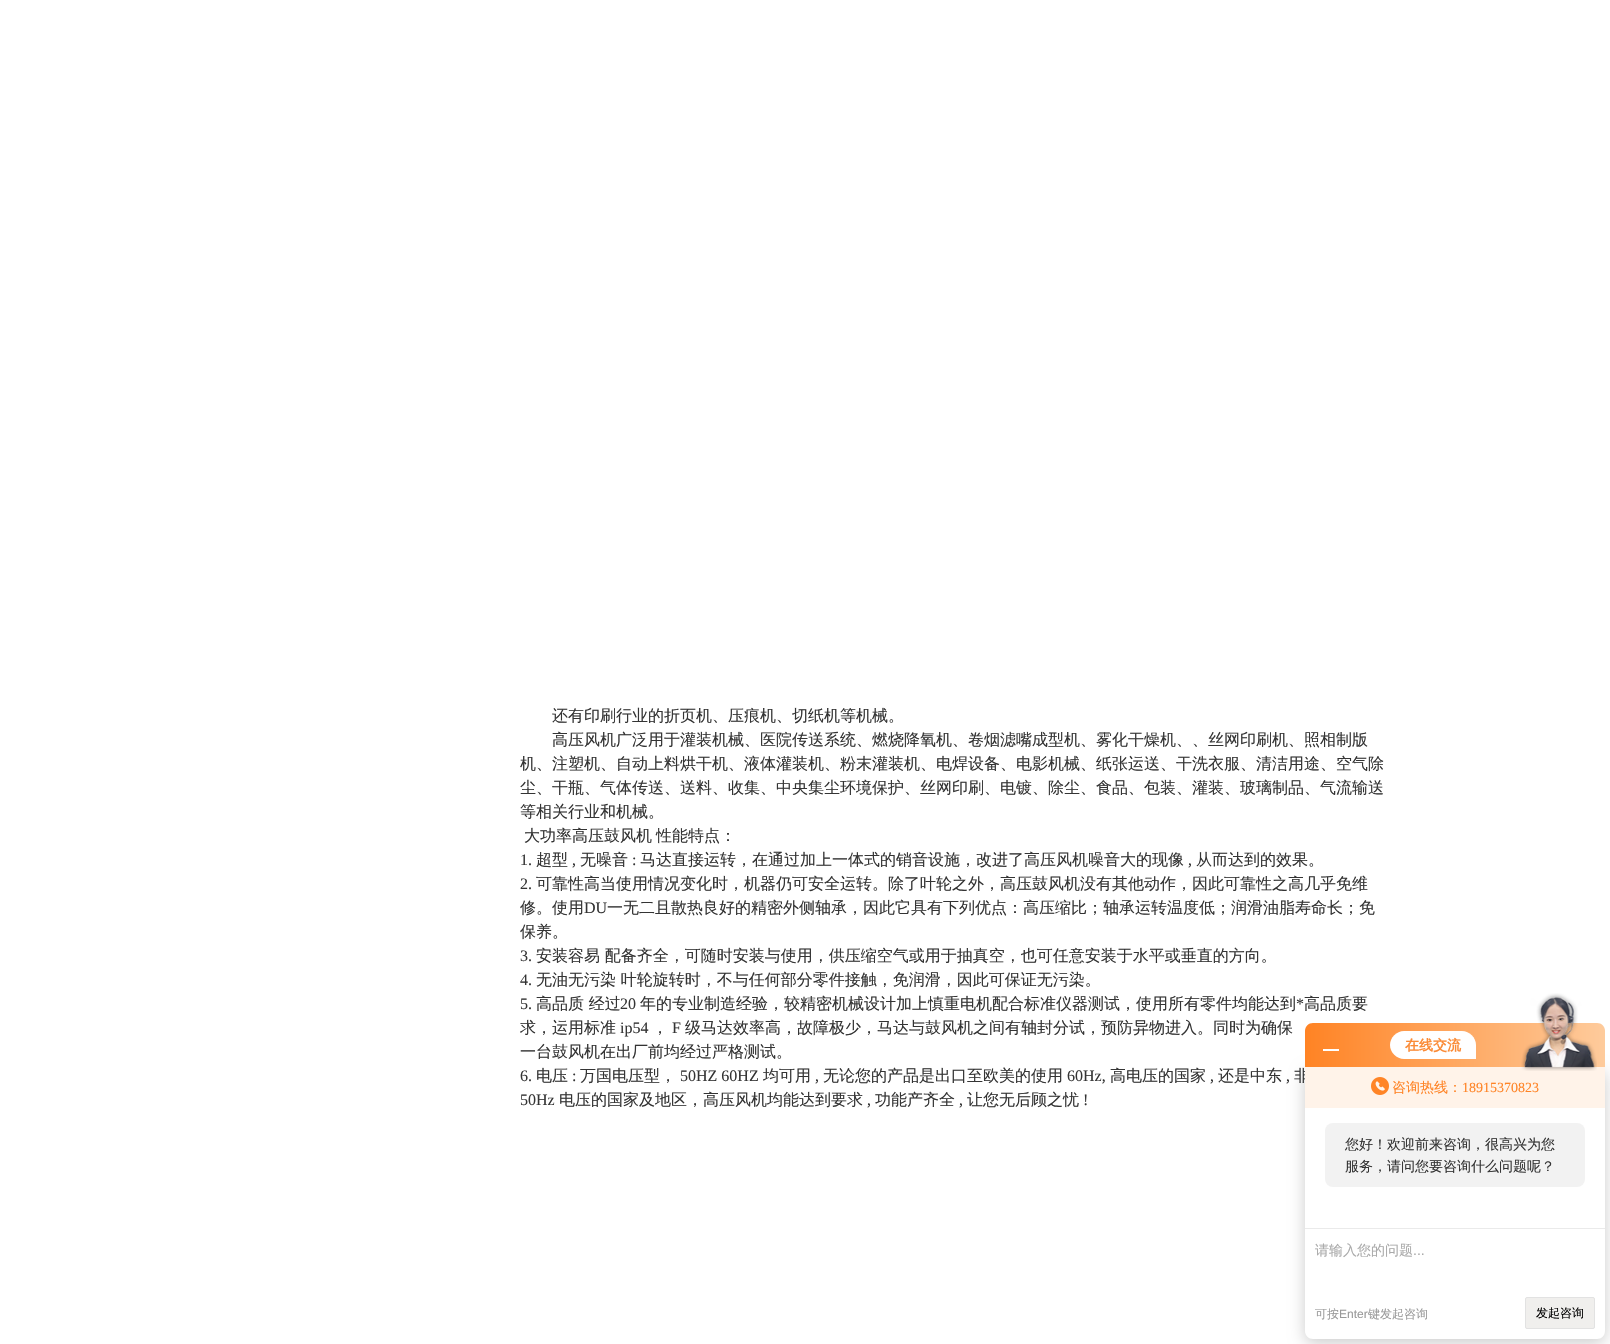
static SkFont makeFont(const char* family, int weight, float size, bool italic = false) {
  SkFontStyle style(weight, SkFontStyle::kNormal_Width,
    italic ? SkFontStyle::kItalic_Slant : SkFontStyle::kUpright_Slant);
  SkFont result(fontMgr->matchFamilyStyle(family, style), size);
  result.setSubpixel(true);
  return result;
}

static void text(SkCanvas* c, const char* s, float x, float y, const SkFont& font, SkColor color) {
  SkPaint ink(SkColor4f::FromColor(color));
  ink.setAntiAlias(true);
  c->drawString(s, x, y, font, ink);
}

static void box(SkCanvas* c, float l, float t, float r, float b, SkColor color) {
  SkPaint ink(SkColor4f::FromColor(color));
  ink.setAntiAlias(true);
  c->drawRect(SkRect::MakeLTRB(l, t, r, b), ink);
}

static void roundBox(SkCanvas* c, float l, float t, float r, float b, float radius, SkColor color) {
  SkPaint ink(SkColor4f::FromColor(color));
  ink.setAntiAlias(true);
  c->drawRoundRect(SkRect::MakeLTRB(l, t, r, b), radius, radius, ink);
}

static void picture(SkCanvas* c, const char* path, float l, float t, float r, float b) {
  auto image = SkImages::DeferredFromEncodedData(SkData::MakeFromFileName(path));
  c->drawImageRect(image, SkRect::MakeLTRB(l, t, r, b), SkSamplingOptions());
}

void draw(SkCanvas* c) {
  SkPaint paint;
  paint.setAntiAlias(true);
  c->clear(0xffffffff);
  SkFont face1 = makeFont("WenQuanYi Zen Hei", 500, 16);
  text(c, "还有印刷行业的折页机、压痕机、切纸机等机械。", 552, 721, face1, 0xff343434);
  text(c, "高压风机广泛用于灌装机械、医院传送系统、燃烧降氧机、卷烟滤嘴成型机、雾化干燥机、、丝网印刷机、照相制版", 552, 745, face1, 0xff343434);
  text(c, "机、注塑机、自动上料烘干机、液体灌装机、粉末灌装机、电焊设备、电影机械、纸张运送、干洗衣服、清洁用途、空气除", 520, 769, face1, 0xff343434);
  text(c, "尘、干瓶、气体传送、送料、收集、中央集尘环境保护、丝网印刷、电镀、除尘、食品、包装、灌装、玻璃制品、气流输送", 520, 793, face1, 0xff343434);
  text(c, "等相关行业和机械。", 520, 817, face1, 0xff343434);
  text(c, "大功率高压鼓风机", 524, 841, face1, 0xff343434);
  text(c, "性能特点：", 656, 841, face1, 0xff343434);
  SkFont face2 = makeFont("Liberation Serif", 400, 16);
  text(c, "1.", 520, 865, face2, 0xff343434);
  text(c, "超型", 536, 865, face1, 0xff343434);
  text(c, ",", 572, 865, face2, 0xff343434);
  text(c, "无噪音", 580, 865, face1, 0xff343434);
  text(c, ":", 632, 865, face2, 0xff343434);
  text(c, "马达直接运转，在通过加上一体式的销音设施，改进了高压风机噪音大的现像", 640, 865, face1, 0xff343434);
  text(c, ",", 1188, 865, face2, 0xff343434);
  text(c, "从而达到的效果。", 1196, 865, face1, 0xff343434);
  text(c, "2.", 520, 889, face2, 0xff343434);
  text(c, "可靠性高当使用情况变化时，机器仍可安全运转。除了叶轮之外，高压鼓风机没有其他动作，因此可靠性之高几乎免维", 536, 889, face1, 0xff343434);
  text(c, "修。使用", 520, 913, face1, 0xff343434);
  text(c, "DU", 584, 913, face2, 0xff343434);
  text(c, "一无二且散热良好的精密外侧轴承，因此它具有下列优点：高压缩比；轴承运转温度低；润滑油脂寿命长；免", 607, 913, face1, 0xff343434);
  text(c, "保养。", 520, 937, face1, 0xff343434);
  text(c, "3.", 520, 961, face2, 0xff343434);
  text(c, "安装容易 配备齐全，可随时安装与使用，供压缩空气或用于抽真空，也可任意安装于水平或垂直的方向。", 536, 961, face1, 0xff343434);
  text(c, "4.", 520, 985, face2, 0xff343434);
  text(c, "无油无污染 叶轮旋转时，不与任何部分零件接触，免润滑，因此可保证无污染。", 536, 985, face1, 0xff343434);
  text(c, "5.", 520, 1009, face2, 0xff343434);
  text(c, "高品质 经过", 536, 1009, face1, 0xff343434);
  text(c, "20", 620, 1009, face2, 0xff343434);
  text(c, "年的专业制造经验，较精密机械设计加上慎重电机配合标准仪器测试，使用所有零件均能达到", 640, 1009, face1, 0xff343434);
  text(c, "*", 1296, 1009, face2, 0xff343434);
  text(c, "高品质要", 1304, 1009, face1, 0xff343434);
  text(c, "求，运用标准", 520, 1033, face1, 0xff343434);
  text(c, "ip54", 620, 1033, face2, 0xff343434);
  text(c, "F", 672, 1033, face2, 0xff343434);
  text(c, "级马达效率高，故障极少，马达与鼓风机之间有轴封分试，预防异物进入。同时为确保", 685, 1033, face1, 0xff343434);
  text(c, "，", 652, 1033, face1, 0xff343434);
  text(c, "一台鼓风机在出厂前均经过严格测试。", 520, 1057, face1, 0xff343434);
  text(c, "6.", 520, 1081, face2, 0xff343434);
  text(c, "电压", 536, 1081, face1, 0xff343434);
  text(c, ":", 572, 1081, face2, 0xff343434);
  text(c, "万国电压型，", 580, 1081, face1, 0xff343434);
  text(c, "50HZ 60HZ", 680, 1081, face2, 0xff343434);
  text(c, "均可用", 763, 1081, face1, 0xff343434);
  text(c, ",", 815, 1081, face2, 0xff343434);
  text(c, "无论您的产品是出口至欧美的使用", 823, 1081, face1, 0xff343434);
  text(c, "60Hz,", 1067, 1081, face2, 0xff343434);
  text(c, "高电压的国家", 1110, 1081, face1, 0xff343434);
  text(c, ",", 1210, 1081, face2, 0xff343434);
  text(c, "还是中东", 1218, 1081, face1, 0xff343434);
  text(c, ",", 1286, 1081, face2, 0xff343434);
  text(c, "非", 1294, 1081, face1, 0xff343434);
  text(c, "50Hz", 520, 1105, face2, 0xff343434);
  text(c, "电压的国家及地区，高压风机均能达到要求", 559, 1105, face1, 0xff343434);
  text(c, ",", 867, 1105, face2, 0xff343434);
  text(c, "功能产齐全", 875, 1105, face1, 0xff343434);
  text(c, ",", 959, 1105, face2, 0xff343434);
  text(c, "让您无后顾之忧", 967, 1105, face1, 0xff343434);
  text(c, "!", 1083, 1105, face2, 0xff343434);
  paint.setColor(0x33000000);
  paint.setMaskFilter(SkMaskFilter::MakeBlur(kNormal_SkBlurStyle, 8));
  c->drawRoundRect(SkRect::MakeLTRB(1305, 1071, 1605, 1343), 8, 8, paint);
  paint.setMaskFilter(nullptr);
  {
    const SkColor colors[] = {0xffff8324, 0xfffecb9c};
    const float stops[] = {0, 1};
    const SkPoint ends[] = {{1305, 1045}, {1605, 1045}};
    paint.setShader(SkGradientShader::MakeLinear(ends, colors, stops, 2, SkTileMode::kClamp));
    paint.setAlpha(255);
  }
  c->drawPath(SkPathBuilder().moveTo(1313, 1023).lineTo(1597, 1023).cubicTo(1601.5f, 1023, 1605, 1026.5f, 1605, 1031).lineTo(1605, 1067).lineTo(1305, 1067).lineTo(1305, 1031).cubicTo(1305, 1026.5f, 1308.5f, 1023, 1313, 1023).close().detach(), paint);
  box(c, 1323, 1049, 1339, 1051, 0xffffffff);
  paint.setShader(nullptr);
  paint.setColor(0xffffffff);
  c->drawPath(SkPathBuilder().moveTo(1404, 1031).lineTo(1462, 1031).cubicTo(1469.5f, 1031, 1476, 1037.5f, 1476, 1045).lineTo(1476, 1059).lineTo(1404, 1059).cubicTo(1396.5f, 1059, 1390, 1052.5f, 1390, 1045).cubicTo(1390, 1037.5f, 1396.5f, 1031, 1404, 1031).close().detach(), paint);
  SkFont face3 = makeFont("WenQuanYi Zen Hei", 700, 14);
  text(c, "在线交流", 1405, 1050, face3, 0xfffb8b36);
  c->drawPath(SkPathBuilder().moveTo(1305, 1067).lineTo(1605, 1067).lineTo(1605, 1331).cubicTo(1605, 1335.5f, 1601.5f, 1339, 1597, 1339).lineTo(1313, 1339).cubicTo(1308.5f, 1339, 1305, 1335.5f, 1305, 1331).close().detach(), paint);
  box(c, 1305, 1067, 1605, 1108, 0xfffff3e9);
  picture(c, "img_01.png", 1521, 993, 1597, 1071);
  picture(c, "img_02.png", 1371, 1077, 1389, 1095);
  SkFont face4 = makeFont("WenQuanYi Zen Hei", 500, 14);
  text(c, "咨询热线：", 1392, 1092, face4, 0xffff8426);
  SkFont face5 = makeFont("Liberation Serif", 400, 14);
  text(c, "18915370823", 1462, 1092, face5, 0xffff8426);
  roundBox(c, 1325, 1123, 1585, 1187, 8, 0xfff2f2f2);
  text(c, "您好！欢迎前来咨询，很高兴为您", 1345, 1149, face4, 0xff343434);
  text(c, "服务，请问您要咨询什么问题呢？", 1345, 1171, face4, 0xff343434);
  box(c, 1305, 1228, 1605, 1229, 0xffeaeaea);
  text(c, "请输入您的问题", 1315, 1255, face4, 0xffaaaaaa);
  SkFont face6 = makeFont("Liberation Sans", 400, 14);
  text(c, "...", 1413, 1255, face6, 0xffaaaaaa);
  SkFont face7 = makeFont("WenQuanYi Zen Hei", 500, 12);
  text(c, "可按", 1315, 1318, face7, 0xff999999);
  SkFont face8 = makeFont("Liberation Sans", 400, 12);
  text(c, "Enter", 1339, 1318, face8, 0xff999999);
  text(c, "键发起咨询", 1368, 1318, face7, 0xff999999);
  paint.setColor(0xfff0efed);
  c->drawRoundRect(SkRect::MakeLTRB(1525.5f, 1297.5f, 1594.5f, 1328.5f), 1.5f, 1.5f, paint);
  paint.setStyle(SkPaint::kStroke_Style);
  paint.setStrokeWidth(1);
  paint.setColor(0xffe2e2e2);
  c->drawRoundRect(SkRect::MakeLTRB(1525.5f, 1297.5f, 1594.5f, 1328.5f), 1.5f, 1.5f, paint);
  text(c, "发起咨询", 1536, 1317, face7, 0xff000000);
}
